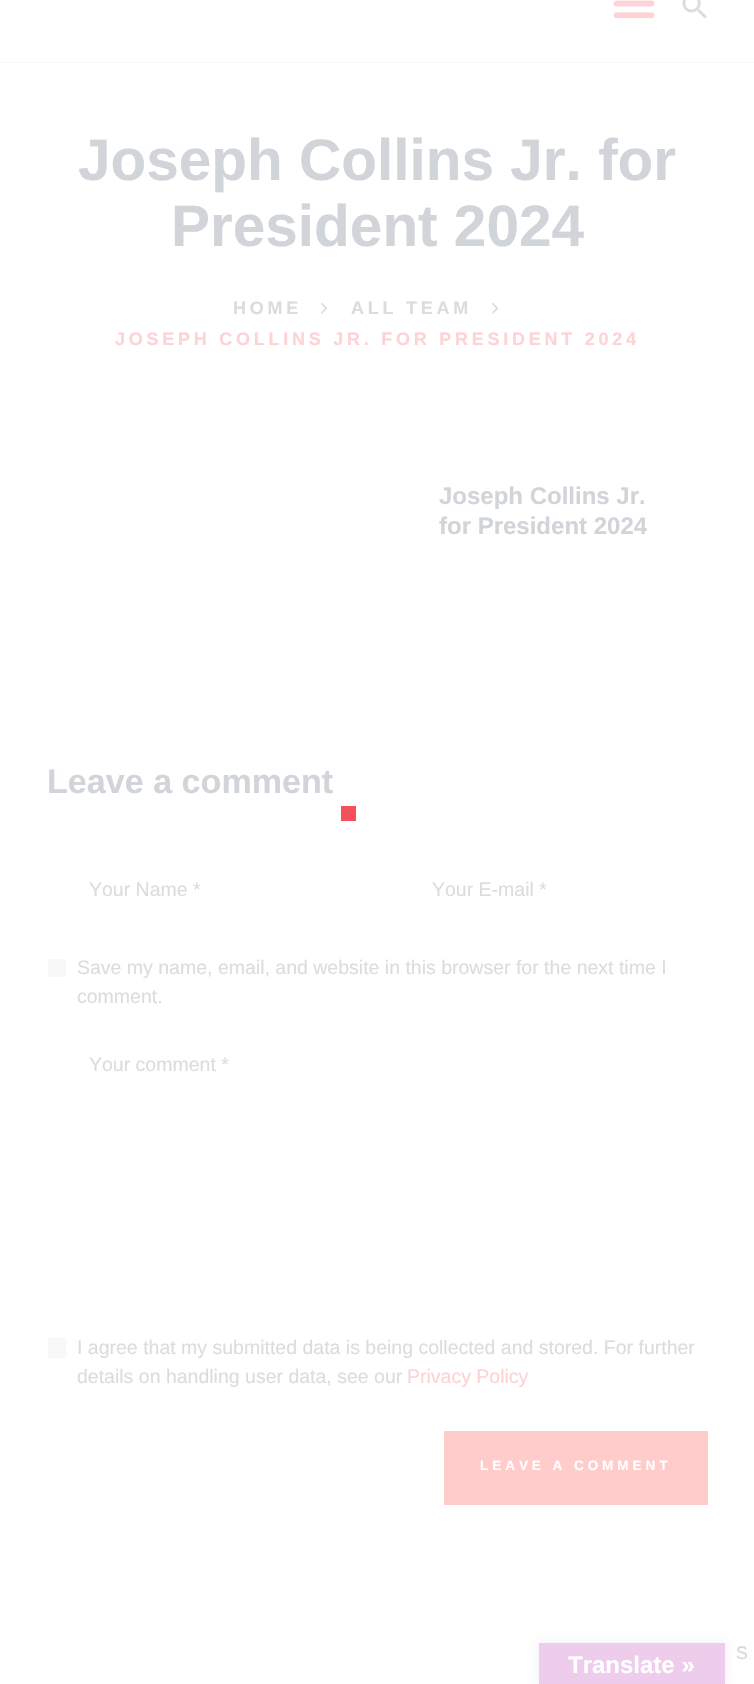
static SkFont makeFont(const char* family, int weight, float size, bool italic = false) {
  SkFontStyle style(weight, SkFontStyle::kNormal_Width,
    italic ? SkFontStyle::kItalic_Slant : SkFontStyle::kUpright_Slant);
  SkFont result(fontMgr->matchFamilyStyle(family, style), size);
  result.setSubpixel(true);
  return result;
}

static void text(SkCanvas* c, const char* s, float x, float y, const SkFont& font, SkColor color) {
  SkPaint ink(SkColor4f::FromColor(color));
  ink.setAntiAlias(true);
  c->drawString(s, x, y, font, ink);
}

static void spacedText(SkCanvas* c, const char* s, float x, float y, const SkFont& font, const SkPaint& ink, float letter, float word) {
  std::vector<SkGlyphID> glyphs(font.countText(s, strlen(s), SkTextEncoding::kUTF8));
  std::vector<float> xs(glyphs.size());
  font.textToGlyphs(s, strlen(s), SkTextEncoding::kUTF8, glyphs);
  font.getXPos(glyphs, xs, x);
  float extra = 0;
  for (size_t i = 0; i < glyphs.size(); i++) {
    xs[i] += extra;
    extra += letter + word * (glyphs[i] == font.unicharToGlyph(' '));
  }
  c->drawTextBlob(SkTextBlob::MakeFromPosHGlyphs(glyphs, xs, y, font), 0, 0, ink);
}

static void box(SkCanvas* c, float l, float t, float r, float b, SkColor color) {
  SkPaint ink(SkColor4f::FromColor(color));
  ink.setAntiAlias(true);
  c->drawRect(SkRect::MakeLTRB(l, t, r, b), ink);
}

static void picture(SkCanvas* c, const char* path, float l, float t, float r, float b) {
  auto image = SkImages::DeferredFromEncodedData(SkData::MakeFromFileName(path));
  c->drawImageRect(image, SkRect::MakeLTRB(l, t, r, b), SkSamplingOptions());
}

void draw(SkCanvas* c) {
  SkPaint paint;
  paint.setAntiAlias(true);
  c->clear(0xffffffff);
  box(c, 0, 62, 754, 63, 0xfff8f8f9);
  picture(c, "img_01.png", 613, 0, 655, 19);
  picture(c, "img_02.png", 682, 0, 707, 19);
  SkFont face1 = makeFont("Liberation Sans", 700, 58.5f);
  text(c, "Joseph Collins Jr. for", 78, 180, face1, 0xffd1d4d8);
  text(c, "President 2024", 171, 246, face1, 0xffd1d4d8);
  SkFont face2 = makeFont("Arimo", 700, 18);
  paint.setColor(0xffdcdce0);
  spacedText(c, "HOME", 233, 314, face2, paint, 3.75f, 0);
  picture(c, "img_03.png", 321, 302, 328, 314);
  spacedText(c, "ALL TEAM", 351, 314, face2, paint, 3.75f, 0);
  picture(c, "img_03.png", 492, 302, 499, 314);
  paint.setColor(0xfffdd3d6);
  spacedText(c, "JOSEPH COLLINS JR. FOR PRESIDENT 2024", 115, 345, face2, paint, 3.75f, 0);
  SkFont face3 = makeFont("Liberation Sans", 700, 24);
  text(c, "Joseph Collins Jr.", 439, 504, face3, 0xffd1d4d8);
  text(c, "for President 2024", 439, 534, face3, 0xffd1d4d8);
  SkFont face4 = makeFont("Liberation Sans", 700, 34.1f);
  text(c, "Leave a comment", 47, 793, face4, 0xffd1d4d8);
  SkFont face5 = makeFont("Arimo", 400, 19.5f);
  text(c, "Your Name *", 89, 896, face5, 0xffdcdce0);
  text(c, "Your E-mail *", 432, 896, face5, 0xffdcdce0);
  box(c, 48, 959, 66, 977, 0xfff8f8f9);
  text(c, "Save my name, email, and website in this browser for the next time I", 77, 974, face5, 0xffdcdce0);
  text(c, "comment.", 77, 1003, face5, 0xffdcdce0);
  text(c, "Your comment *", 89, 1071, face5, 0xffdcdce0);
  box(c, 48, 1338, 66, 1358, 0xfff8f8f9);
  text(c, "I agree that my submitted data is being collected and stored. For further", 77, 1354, face5, 0xffdcdce0);
  text(c, "details on handling user data, see our", 77, 1383, face5, 0xffdcdce0);
  text(c, "Privacy Policy", 407, 1383, face5, 0xfffdd3d6);
  box(c, 444, 1431, 708, 1505, 0xffffcccc);
  SkFont face6 = makeFont("Arimo", 700, 13.6f);
  paint.setColor(0xffffffff);
  spacedText(c, "LEAVE A COMMENT", 480, 1470, face6, paint, 3.9f, 0);
  SkFont face7 = makeFont("Arimo", 400, 24);
  text(c, "s", 736, 1659, face7, 0xffdcdce0);
  box(c, 341, 806, 356, 821, 0xfff6505d);
  paint.setColor(0x4dcccccc);
  paint.setMaskFilter(SkMaskFilter::MakeBlur(kNormal_SkBlurStyle, 7));
  c->drawRect(SkRect::MakeLTRB(539, 1643, 725, 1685), paint);
  paint.setMaskFilter(nullptr);
  box(c, 539, 1643, 725, 1684, 0xffeeccec);
  text(c, "Translate »", 568, 1673, face3, 0xffffffff);
}
